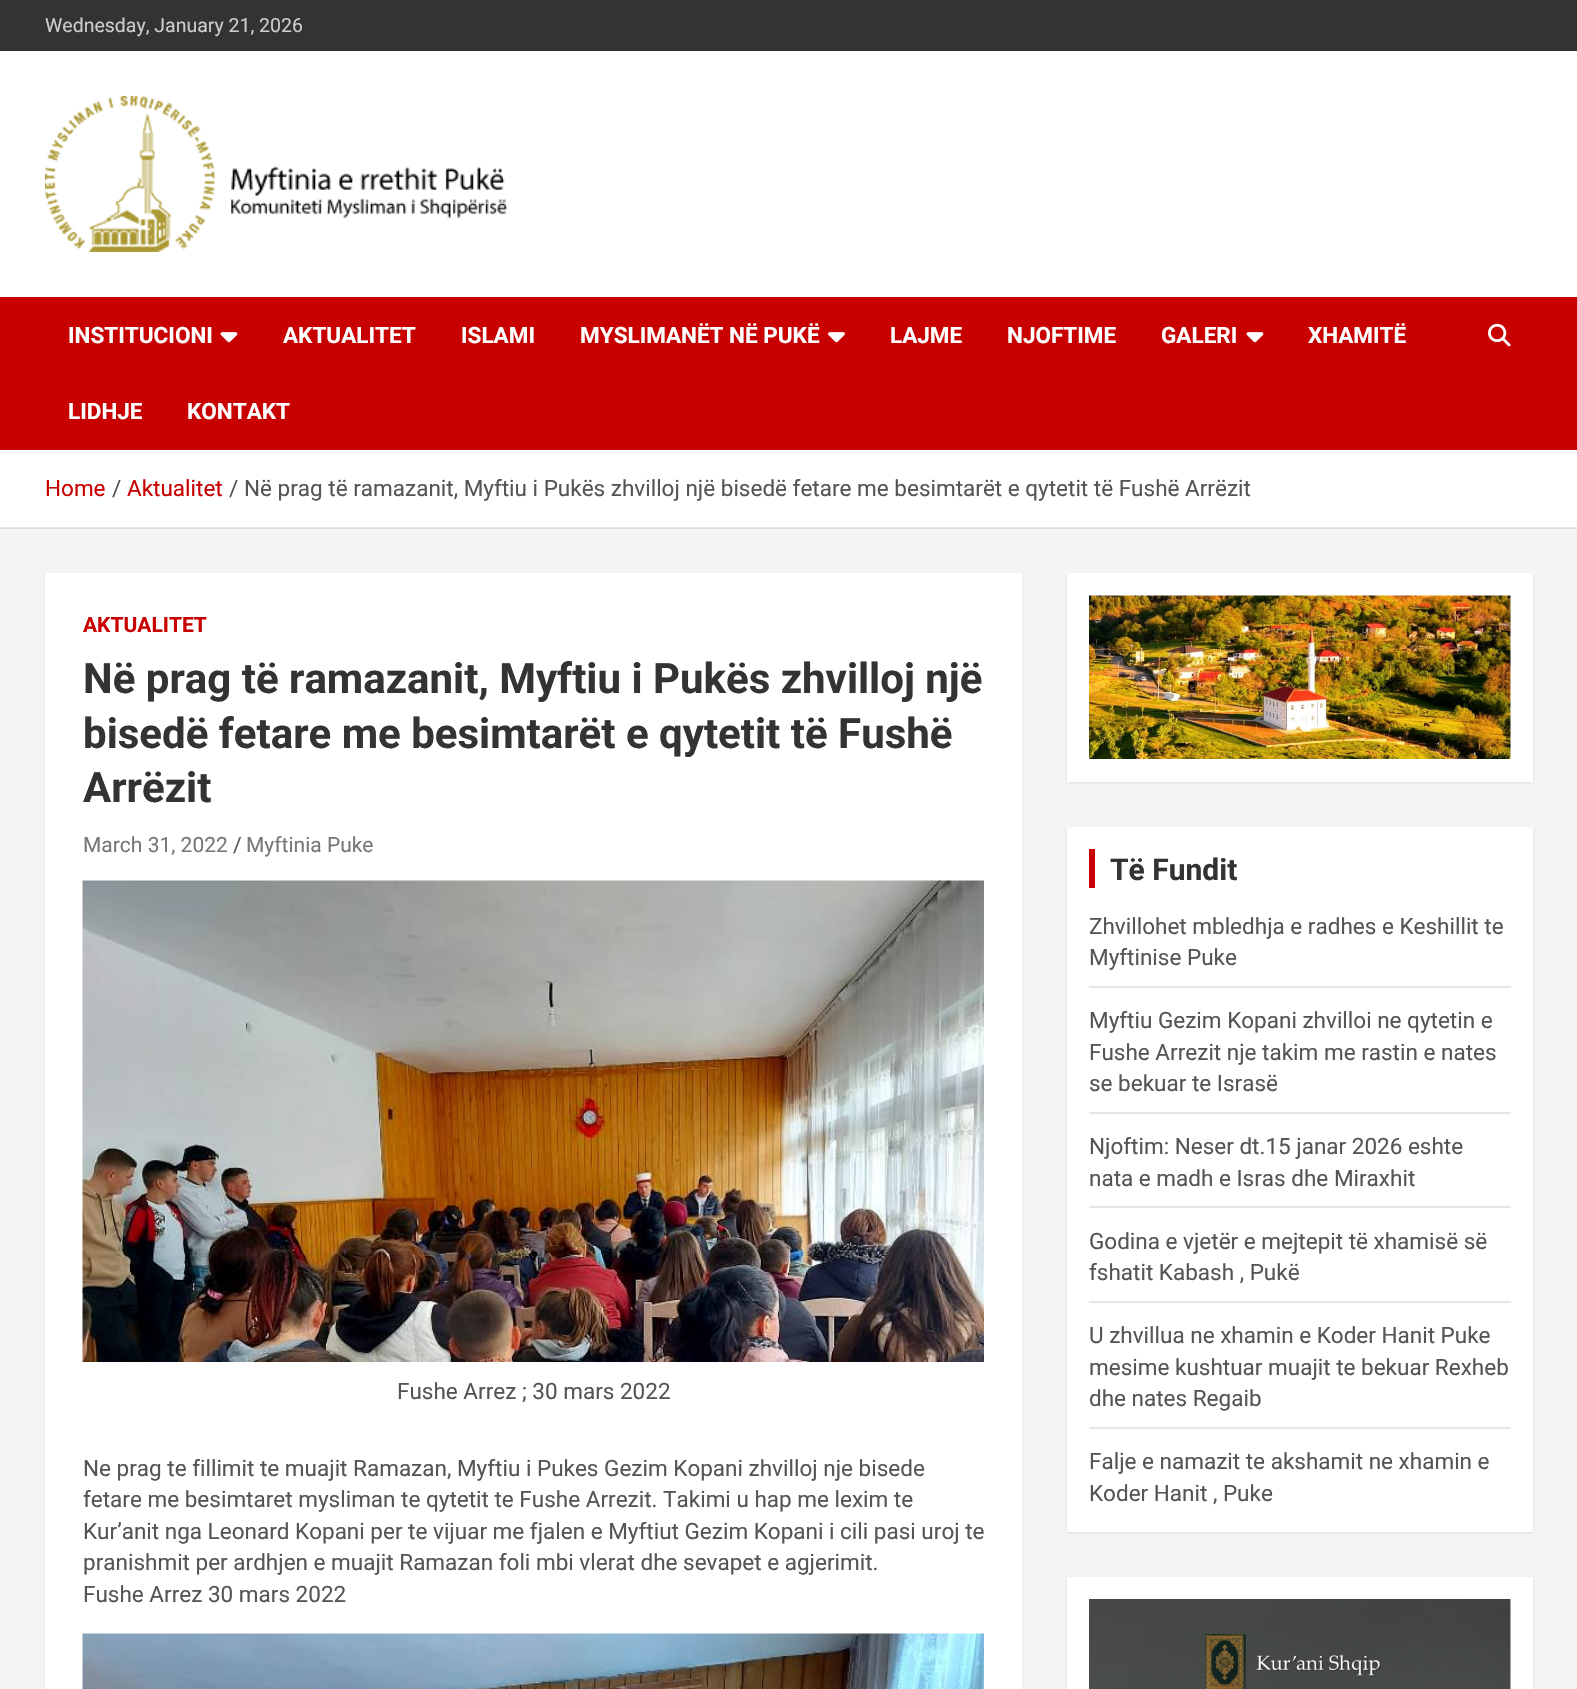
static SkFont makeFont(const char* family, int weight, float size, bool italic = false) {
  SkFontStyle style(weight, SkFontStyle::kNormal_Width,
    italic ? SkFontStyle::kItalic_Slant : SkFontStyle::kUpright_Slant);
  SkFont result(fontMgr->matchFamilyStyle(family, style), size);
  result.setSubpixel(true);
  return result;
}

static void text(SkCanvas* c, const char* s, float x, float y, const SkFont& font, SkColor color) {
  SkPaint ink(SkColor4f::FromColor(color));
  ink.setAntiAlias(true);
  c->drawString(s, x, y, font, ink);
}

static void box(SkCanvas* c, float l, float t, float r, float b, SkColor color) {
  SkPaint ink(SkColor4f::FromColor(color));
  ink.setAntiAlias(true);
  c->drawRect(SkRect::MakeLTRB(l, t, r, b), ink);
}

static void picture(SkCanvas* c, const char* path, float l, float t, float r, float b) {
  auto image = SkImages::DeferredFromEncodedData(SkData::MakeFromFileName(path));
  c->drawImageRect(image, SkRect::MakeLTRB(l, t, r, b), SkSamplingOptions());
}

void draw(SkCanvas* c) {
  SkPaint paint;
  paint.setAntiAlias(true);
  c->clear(0xfff4f4f4);
  box(c, 0, 528, 1577, 529, 0xffdcdcdc);
  box(c, 0, 0, 1577, 51, 0xff333333);
  SkFont face1 = makeFont("Roboto", 400, 19.5f);
  text(c, "Wednesday, January 21, 2026", 45, 32, face1, 0xffcccccc);
  box(c, 0, 51, 1577, 297, 0xffffffff);
  picture(c, "img_01.png", 45, 96, 508, 252);
  box(c, 0, 297, 1577, 450, 0xffc80000);
  SkFont face2 = makeFont("Roboto", 700, 22.5f);
  text(c, "INSTITUCIONI", 68, 343, face2, 0xffffffff);
  picture(c, "img_02.png", 220, 332, 238, 343);
  text(c, "AKTUALITET", 283, 343, face2, 0xffffffff);
  text(c, "ISLAMI", 461, 343, face2, 0xffffffff);
  text(c, "MYSLIMANËT NË PUKË", 580, 343, face2, 0xffffffff);
  picture(c, "img_03.png", 828, 332, 845, 343);
  text(c, "LAJME", 890, 343, face2, 0xffffffff);
  text(c, "NJOFTIME", 1007, 343, face2, 0xffffffff);
  text(c, "GALERI", 1161, 343, face2, 0xffffffff);
  picture(c, "img_02.png", 1246, 332, 1264, 343);
  text(c, "XHAMITË", 1308, 343, face2, 0xffffffff);
  text(c, "LIDHJE", 68, 419, face2, 0xffffffff);
  text(c, "KONTAKT", 187, 419, face2, 0xffffffff);
  picture(c, "img_04.png", 1488, 323, 1511, 347);
  box(c, 0, 450, 1577, 527, 0xffffffff);
  box(c, 0, 527, 1577, 528, 0xffe6e6e6);
  SkFont face3 = makeFont("Roboto", 400, 22.5f);
  text(c, "Home", 45, 496, face3, 0xffc80000);
  text(c, "/", 112, 496, face3, 0xff555555);
  text(c, "Aktualitet", 127, 496, face3, 0xffc80000);
  text(c, "/", 229, 496, face3, 0xff555555);
  text(c, "Në prag të ramazanit, Myftiu i Pukës zhvilloj një bisedë fetare me besimtarët e qytetit të Fushë Arrëzit", 244, 496, face3, 0xff555555);
  paint.setColor(0x1a000000);
  paint.setMaskFilter(SkMaskFilter::MakeBlur(kNormal_SkBlurStyle, 1));
  c->drawRect(SkRect::MakeLTRB(45, 575, 1022, 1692), paint);
  paint.setMaskFilter(nullptr);
  box(c, 45, 573, 1022, 1689, 0xffffffff);
  SkFont face4 = makeFont("Roboto", 700, 21);
  text(c, "AKTUALITET", 83, 632, face4, 0xffc80000);
  SkFont face5 = makeFont("Roboto", 700, 42);
  text(c, "Në prag të ramazanit, Myftiu i Pukës zhvilloj një", 83, 693, face5, 0xff333333);
  text(c, "bisedë fetare me besimtarët e qytetit të Fushë", 83, 748, face5, 0xff333333);
  text(c, "Arrëzit", 83, 802, face5, 0xff333333);
  SkFont face6 = makeFont("Roboto", 400, 21);
  text(c, "March 31, 2022", 83, 852, face6, 0xff777777);
  text(c, "/", 233, 852, face6, 0xff555555);
  text(c, "Myftinia Puke", 246, 852, face6, 0xff777777);
  picture(c, "img_05.png", 82, 880, 984, 1362);
  text(c, "Fushe Arrez ; 30 mars 2022", 397, 1399, face3, 0xff555555);
  text(c, "Ne prag te fillimit te muajit Ramazan, Myftiu i Pukes Gezim Kopani zhvilloj nje bisede", 83, 1476, face3, 0xff555555);
  text(c, "fetare me besimtaret mysliman te qytetit te Fushe Arrezit. Takimi u hap me lexim te", 83, 1507, face3, 0xff555555);
  text(c, "Kur’anit nga Leonard Kopani per te vijuar me fjalen e Myftiut Gezim Kopani i cili pasi uroj te", 83, 1539, face3, 0xff555555);
  text(c, "pranishmit per ardhjen e muajit Ramazan foli mbi vlerat dhe sevapet e agjerimit.", 83, 1570, face3, 0xff555555);
  text(c, "Fushe Arrez 30 mars 2022", 83, 1602, face3, 0xff555555);
  picture(c, "img_06.png", 82, 1633, 984, 1689);
  paint.setMaskFilter(SkMaskFilter::MakeBlur(kNormal_SkBlurStyle, 1));
  c->drawRect(SkRect::MakeLTRB(1067, 575, 1533, 783), paint);
  paint.setMaskFilter(nullptr);
  box(c, 1067, 573, 1533, 782, 0xffffffff);
  picture(c, "img_07.png", 1089, 595, 1511, 759);
  paint.setMaskFilter(SkMaskFilter::MakeBlur(kNormal_SkBlurStyle, 1));
  c->drawRect(SkRect::MakeLTRB(1067, 828, 1533, 1533), paint);
  paint.setMaskFilter(nullptr);
  box(c, 1067, 827, 1533, 1532, 0xffffffff);
  box(c, 1089, 849, 1095, 888, 0xffc80000);
  SkFont face7 = makeFont("Roboto", 700, 30);
  text(c, "Të Fundit", 1110, 880, face7, 0xff333333);
  box(c, 1089, 986, 1511, 988, 0xffe6e6e6);
  text(c, "Zhvillohet mbledhja e radhes e Keshillit te", 1089, 934, face3, 0xff555555);
  text(c, "Myftinise Puke", 1089, 965, face3, 0xff555555);
  box(c, 1089, 1112, 1511, 1114, 0xffe6e6e6);
  text(c, "Myftiu Gezim Kopani zhvilloi ne qytetin e", 1089, 1028, face3, 0xff555555);
  text(c, "Fushe Arrezit nje takim me rastin e nates", 1089, 1060, face3, 0xff555555);
  text(c, "se bekuar te Israsë", 1089, 1091, face3, 0xff555555);
  box(c, 1089, 1206, 1511, 1208, 0xffe6e6e6);
  text(c, "Njoftim: Neser dt.15 janar 2026 eshte", 1089, 1154, face3, 0xff555555);
  text(c, "nata e madh e Isras dhe Miraxhit", 1089, 1186, face3, 0xff555555);
  box(c, 1089, 1301, 1511, 1303, 0xffe6e6e6);
  text(c, "Godina e vjetër e mejtepit të xhamisë së", 1089, 1249, face3, 0xff555555);
  text(c, "fshatit Kabash , Pukë", 1089, 1280, face3, 0xff555555);
  box(c, 1089, 1427, 1511, 1429, 0xffe6e6e6);
  text(c, "U zhvillua ne xhamin e Koder Hanit Puke", 1089, 1343, face3, 0xff555555);
  text(c, "mesime kushtuar muajit te bekuar Rexheb", 1089, 1375, face3, 0xff555555);
  text(c, "dhe nates Regaib", 1089, 1406, face3, 0xff555555);
  text(c, "Falje e namazit te akshamit ne xhamin e", 1089, 1469, face3, 0xff555555);
  text(c, "Koder Hanit , Puke", 1089, 1501, face3, 0xff555555);
  paint.setMaskFilter(SkMaskFilter::MakeBlur(kNormal_SkBlurStyle, 1));
  c->drawRect(SkRect::MakeLTRB(1067, 1578, 1533, 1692), paint);
  paint.setMaskFilter(nullptr);
  box(c, 1067, 1577, 1533, 1689, 0xffffffff);
  picture(c, "img_08.png", 1089, 1599, 1511, 1689);
}
